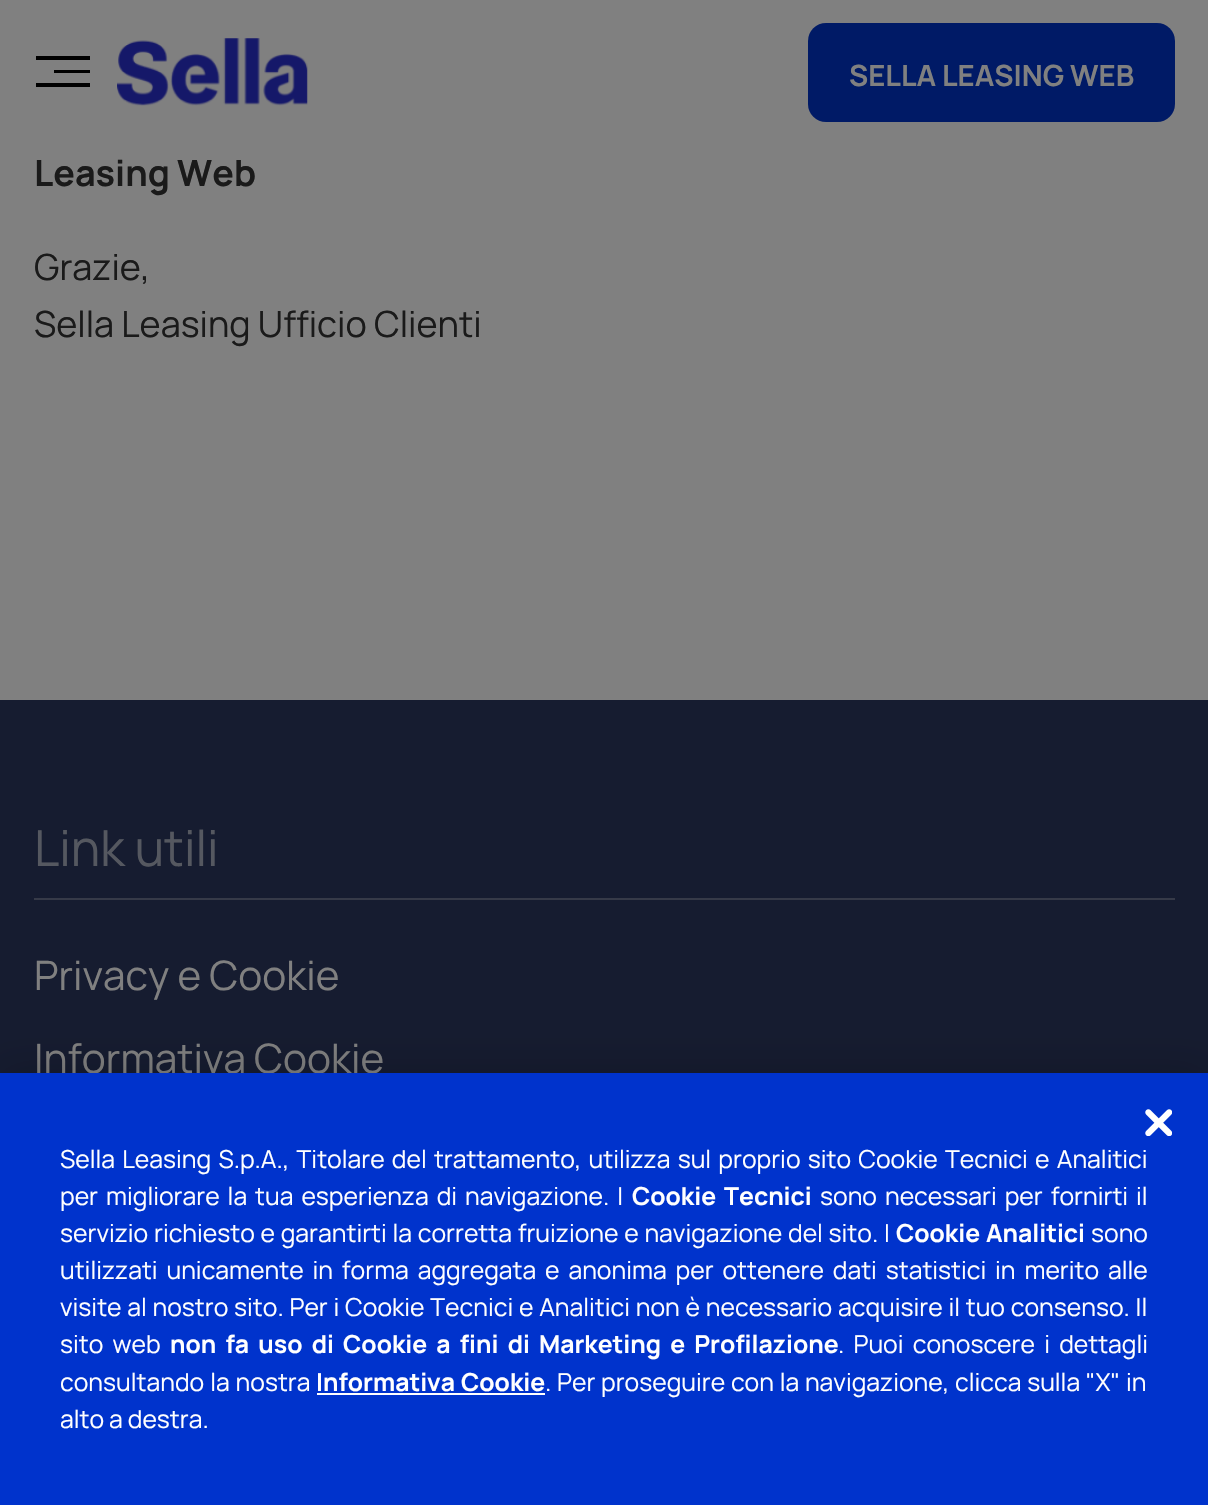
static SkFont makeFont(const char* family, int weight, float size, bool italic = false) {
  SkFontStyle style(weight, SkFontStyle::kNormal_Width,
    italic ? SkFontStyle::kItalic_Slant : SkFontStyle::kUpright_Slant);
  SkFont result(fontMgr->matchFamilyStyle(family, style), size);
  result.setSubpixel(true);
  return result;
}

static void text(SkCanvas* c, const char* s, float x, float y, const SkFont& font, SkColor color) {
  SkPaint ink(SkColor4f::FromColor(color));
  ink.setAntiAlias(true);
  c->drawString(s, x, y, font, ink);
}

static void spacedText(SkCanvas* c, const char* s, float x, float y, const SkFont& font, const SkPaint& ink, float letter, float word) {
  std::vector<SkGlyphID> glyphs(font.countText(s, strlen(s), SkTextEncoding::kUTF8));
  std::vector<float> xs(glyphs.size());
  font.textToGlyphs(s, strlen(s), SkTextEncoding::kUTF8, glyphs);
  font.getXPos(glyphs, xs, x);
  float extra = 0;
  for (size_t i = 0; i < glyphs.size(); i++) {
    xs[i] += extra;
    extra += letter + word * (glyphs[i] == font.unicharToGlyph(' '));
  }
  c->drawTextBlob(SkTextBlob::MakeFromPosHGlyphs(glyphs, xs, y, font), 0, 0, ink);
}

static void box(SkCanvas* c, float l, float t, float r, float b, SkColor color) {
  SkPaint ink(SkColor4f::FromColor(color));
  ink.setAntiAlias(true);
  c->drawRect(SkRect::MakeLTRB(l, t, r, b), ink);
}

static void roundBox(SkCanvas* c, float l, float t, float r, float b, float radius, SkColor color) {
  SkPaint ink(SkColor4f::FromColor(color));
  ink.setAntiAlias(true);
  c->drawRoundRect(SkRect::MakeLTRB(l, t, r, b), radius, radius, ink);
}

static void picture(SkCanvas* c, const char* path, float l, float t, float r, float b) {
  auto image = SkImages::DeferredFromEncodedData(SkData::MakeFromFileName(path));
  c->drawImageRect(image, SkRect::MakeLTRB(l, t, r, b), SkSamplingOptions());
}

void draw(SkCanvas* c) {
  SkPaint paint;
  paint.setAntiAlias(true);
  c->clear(0xff808080);
  paint.setColor(0xff000000);
  c->drawPath(SkPathBuilder(SkPathFillType::kEvenOdd).moveTo(36, 56).lineTo(90, 56).lineTo(90, 60).lineTo(36, 60).close().moveTo(54, 70).lineTo(90, 70).lineTo(90, 73).lineTo(54, 73).close().moveTo(36, 83).lineTo(90, 83).lineTo(90, 87).lineTo(36, 87).close().detach(), paint);
  picture(c, "img_01.png", 117, 38, 308, 106);
  roundBox(c, 808, 23, 1175, 122, 18, 0xff001a66);
  SkFont face1 = makeFont("Manrope", 700, 29.25f);
  text(c, "SELLA LEASING WEB", 849, 86, face1, 0xff808080);
  SkFont face2 = makeFont("Manrope", 700, 36);
  text(c, "Leasing Web", 34, 186, face2, 0xff1a1a1a);
  SkFont face3 = makeFont("Manrope", 400, 36);
  text(c, "Grazie,", 34, 280, face3, 0xff1a1a1a);
  text(c, "Sella Leasing Ufficio Clienti", 34, 337, face3, 0xff1a1a1a);
  box(c, 0, 700, 1208, 1073, 0xff161c30);
  box(c, 34, 898, 1175, 900, 0xff363a48);
  SkFont face4 = makeFont("Manrope", 400, 49.5f);
  text(c, "Link utili", 34, 866, face4, 0xff555860);
  SkFont face5 = makeFont("Manrope", 400, 40.5f);
  text(c, "Privacy e Cookie", 34, 990, face5, 0xff808080);
  text(c, "Informativa Cookie", 34, 1073, face5, 0xff808080);
  paint.setColor(0x33000000);
  paint.setMaskFilter(SkMaskFilter::MakeBlur(kNormal_SkBlurStyle, 20));
  c->drawRect(SkRect::MakeLTRB(0, 1073, 1208, 1505), paint);
  paint.setMaskFilter(nullptr);
  box(c, 0, 1073, 1208, 1505, 0xff0033cc);
  picture(c, "img_02.png", 1145, 1109, 1172, 1136);
  SkFont face6 = makeFont("Manrope", 400, 24.75f);
  paint.setColor(0xffffffff);
  spacedText(c, "Sella Leasing S.p.A., Titolare del trattamento, utilizza sul proprio sito Cookie Tecnici e Analitici", 60, 1168, face6, paint, 0, 2.25f);
  spacedText(c, "per migliorare la tua esperienza di navigazione. I", 60, 1205, face6, paint, 0, 3);
  SkFont face7 = makeFont("Manrope", 700, 24.75f);
  spacedText(c, "Cookie Tecnici", 632, 1205, face7, paint, 0, 3);
  spacedText(c, "sono necessari per fornirti il", 820, 1205, face6, paint, 0, 3);
  spacedText(c, "servizio richiesto e garantirti la corretta fruizione e navigazione del sito. I", 60, 1242, face6, paint, 0, 0.75f);
  spacedText(c, "Cookie Analitici", 896, 1242, face7, paint, 0, 1);
  text(c, "sono", 1091, 1242, face6, 0xffffffff);
  spacedText(c, "utilizzati unicamente in forma aggregata e anonima per ottenere dati statistici in merito alle", 60, 1279, face6, paint, 0, 3.9f);
  spacedText(c, "visite al nostro sito. Per i Cookie Tecnici e Analitici non è necessario acquisire il tuo consenso. Il", 60, 1316, face6, paint, 0, 0.8f);
  spacedText(c, "sito web", 60, 1353, face6, paint, 0, 4.25f);
  spacedText(c, "non fa uso di Cookie a fini di Marketing e Profilazione", 170, 1353, face7, paint, 0, 4.25f);
  spacedText(c, ". Puoi conoscere i dettagli", 838, 1353, face6, paint, 0, 4.25f);
  spacedText(c, "consultando la nostra", 60, 1391, face6, paint, 0, 1);
  spacedText(c, "Informativa Cookie", 316, 1391, face7, paint, 0, 1);
  box(c, 317, 1393, 545, 1395, 0xffffffff);
  spacedText(c, ". Per proseguire con la navigazione, clicca sulla \"X\" in", 545, 1391, face6, paint, 0, 0.75f);
  text(c, "alto a destra.", 60, 1428, face6, 0xffffffff);
}
